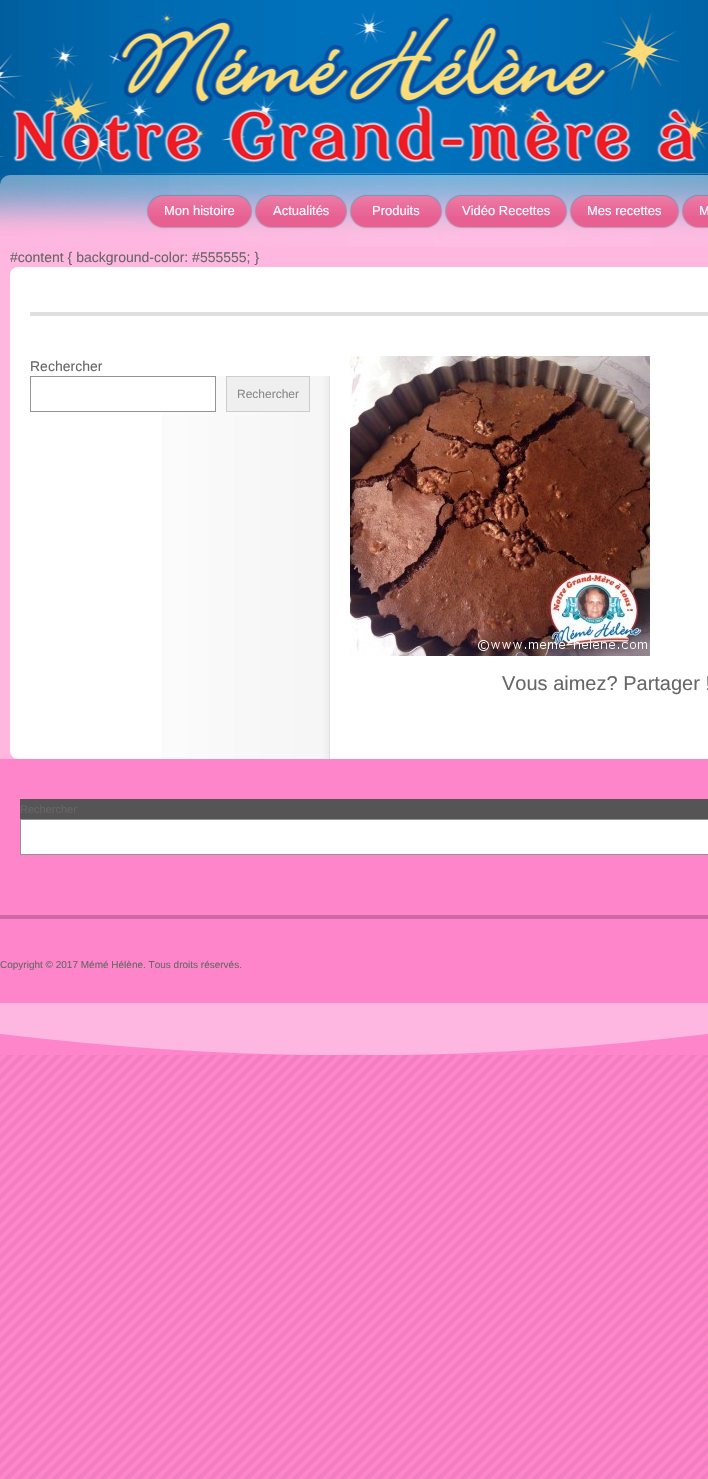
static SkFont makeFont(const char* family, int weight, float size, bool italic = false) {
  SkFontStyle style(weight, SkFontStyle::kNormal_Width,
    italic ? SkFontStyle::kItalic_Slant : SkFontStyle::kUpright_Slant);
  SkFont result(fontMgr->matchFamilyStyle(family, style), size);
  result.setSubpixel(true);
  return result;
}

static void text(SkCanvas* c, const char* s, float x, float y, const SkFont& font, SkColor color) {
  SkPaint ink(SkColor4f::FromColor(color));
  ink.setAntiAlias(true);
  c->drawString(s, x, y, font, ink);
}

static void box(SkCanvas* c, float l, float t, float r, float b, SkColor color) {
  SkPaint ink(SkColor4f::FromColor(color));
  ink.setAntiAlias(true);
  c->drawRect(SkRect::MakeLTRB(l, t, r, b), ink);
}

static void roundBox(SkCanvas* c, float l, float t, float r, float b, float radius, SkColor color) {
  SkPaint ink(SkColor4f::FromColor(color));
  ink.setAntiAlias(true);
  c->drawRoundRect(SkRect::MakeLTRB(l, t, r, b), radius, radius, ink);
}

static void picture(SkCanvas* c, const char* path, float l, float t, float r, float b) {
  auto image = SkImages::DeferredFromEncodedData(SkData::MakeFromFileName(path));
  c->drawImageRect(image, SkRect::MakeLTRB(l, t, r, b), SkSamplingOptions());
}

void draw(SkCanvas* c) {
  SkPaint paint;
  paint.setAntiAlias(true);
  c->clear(0xfffe85ca);
  picture(c, "img_01.png", 0, 1055, 708, 1479);
  picture(c, "img_02.png", 0, 0, 708, 236);
  picture(c, "img_03.png", 0, 1003, 708, 1055);
  picture(c, "img_04.png", 94, 173, 708, 175);
  picture(c, "img_05.png", 0, 175, 708, 247);
  picture(c, "img_06.png", 169, 175, 708, 247);
  paint.setColor(0x33000000);
  paint.setMaskFilter(SkMaskFilter::MakeBlur(kNormal_SkBlurStyle, 0.5f));
  c->drawRoundRect(SkRect::MakeLTRB(147, 195, 252, 228), 16.5f, 16.5f, paint);
  paint.setMaskFilter(nullptr);
  roundBox(c, 148, 196, 251, 227, 15.5f, 0xffe85f92);
  picture(c, "img_07.png", 148, 196, 251, 216);
  SkFont face1 = makeFont("Liberation Sans", 400, 13);
  text(c, "Mon histoire", 164, 215, face1, 0xffffffff);
  paint.setMaskFilter(SkMaskFilter::MakeBlur(kNormal_SkBlurStyle, 0.5f));
  c->drawRoundRect(SkRect::MakeLTRB(255, 195, 347, 228), 16.5f, 16.5f, paint);
  paint.setMaskFilter(nullptr);
  roundBox(c, 256, 196, 346, 227, 15.5f, 0xffe85f92);
  picture(c, "img_08.png", 256, 196, 346, 216);
  text(c, "Actualités", 273, 215, face1, 0xffffffff);
  paint.setMaskFilter(SkMaskFilter::MakeBlur(kNormal_SkBlurStyle, 0.5f));
  c->drawRoundRect(SkRect::MakeLTRB(350, 195, 442, 228), 16.5f, 16.5f, paint);
  paint.setMaskFilter(nullptr);
  roundBox(c, 351, 196, 441, 227, 15.5f, 0xffe85f92);
  picture(c, "img_09.png", 351, 196, 441, 216);
  text(c, "Produits", 372, 215, face1, 0xffffffff);
  paint.setMaskFilter(SkMaskFilter::MakeBlur(kNormal_SkBlurStyle, 0.5f));
  c->drawRoundRect(SkRect::MakeLTRB(445, 195, 567, 228), 16.5f, 16.5f, paint);
  paint.setMaskFilter(nullptr);
  roundBox(c, 446, 196, 566, 227, 15.5f, 0xffe85f92);
  picture(c, "img_10.png", 446, 196, 566, 216);
  text(c, "Vidéo Recettes", 462, 215, face1, 0xffffffff);
  paint.setMaskFilter(SkMaskFilter::MakeBlur(kNormal_SkBlurStyle, 0.5f));
  c->drawRoundRect(SkRect::MakeLTRB(570, 195, 679, 228), 16.5f, 16.5f, paint);
  paint.setMaskFilter(nullptr);
  roundBox(c, 571, 196, 678, 227, 15.5f, 0xffe85f92);
  picture(c, "img_11.png", 571, 196, 678, 216);
  text(c, "Mes recettes", 587, 215, face1, 0xffffffff);
  paint.setMaskFilter(SkMaskFilter::MakeBlur(kNormal_SkBlurStyle, 0.5f));
  c->drawRoundRect(SkRect::MakeLTRB(682, 195, 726, 228), 16.5f, 16.5f, paint);
  paint.setMaskFilter(nullptr);
  roundBox(c, 683, 196, 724, 227, 15.5f, 0xffe85f92);
  picture(c, "img_12.png", 683, 196, 708, 216);
  text(c, "M", 699, 215, face1, 0xffffffff);
  box(c, 0, 247, 708, 759, 0xffffb7df);
  SkFont face2 = makeFont("Liberation Sans", 400, 14);
  text(c, "#content { background-color: #555555; }", 10, 262, face2, 0xff666666);
  roundBox(c, 10, 267, 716, 759, 8, 0xffffffff);
  picture(c, "img_13.png", 162, 316, 330, 759);
  picture(c, "img_14.png", 162, 316, 330, 376);
  box(c, 30, 312, 708, 316, 0xffdfdfdf);
  text(c, "Rechercher", 30, 371, face2, 0xff666666);
  box(c, 162, 377, 215, 411, 0xffffffff);
  paint.setStyle(SkPaint::kStroke_Style);
  paint.setStrokeWidth(1);
  paint.setColor(0xff949494);
  c->drawRect(SkRect::MakeLTRB(30.5f, 376.5f, 215.5f, 411.5f), paint);
  paint.setStyle(SkPaint::kFill_Style);
  paint.setColor(0xffefefef);
  c->drawRect(SkRect::MakeLTRB(226.5f, 376.5f, 309.5f, 411.5f), paint);
  paint.setStyle(SkPaint::kStroke_Style);
  paint.setColor(0xffcccccc);
  c->drawRect(SkRect::MakeLTRB(226.5f, 376.5f, 309.5f, 411.5f), paint);
  SkFont face3 = makeFont("Liberation Sans", 400, 12);
  text(c, "Rechercher", 237, 398, face3, 0xff888888);
  picture(c, "img_15.png", 350, 356, 650, 656);
  SkFont face4 = makeFont("Liberation Sans", 400, 20);
  text(c, "Vous aimez? Partager !", 502, 690, face4, 0xff666666);
  box(c, 20, 799, 708, 819, 0xff555555);
  SkFont face5 = makeFont("Liberation Sans", 400, 11);
  text(c, "Rechercher", 20, 813, face5, 0xff666666);
  paint.setStyle(SkPaint::kFill_Style);
  paint.setColor(0xffffffff);
  c->drawRect(SkRect::MakeLTRB(20.5f, 819.5f, 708.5f, 854.5f), paint);
  paint.setStyle(SkPaint::kStroke_Style);
  paint.setColor(0xff949494);
  c->drawRect(SkRect::MakeLTRB(20.5f, 819.5f, 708.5f, 854.5f), paint);
  box(c, 0, 915, 708, 919, 0xffcb6aa2);
  SkFont face6 = makeFont("Liberation Sans", 400, 10);
  text(c, "Copyright © 2017 Mémé Hélène. Tous droits réservés.", 0, 968, face6, 0xff666666);
}
